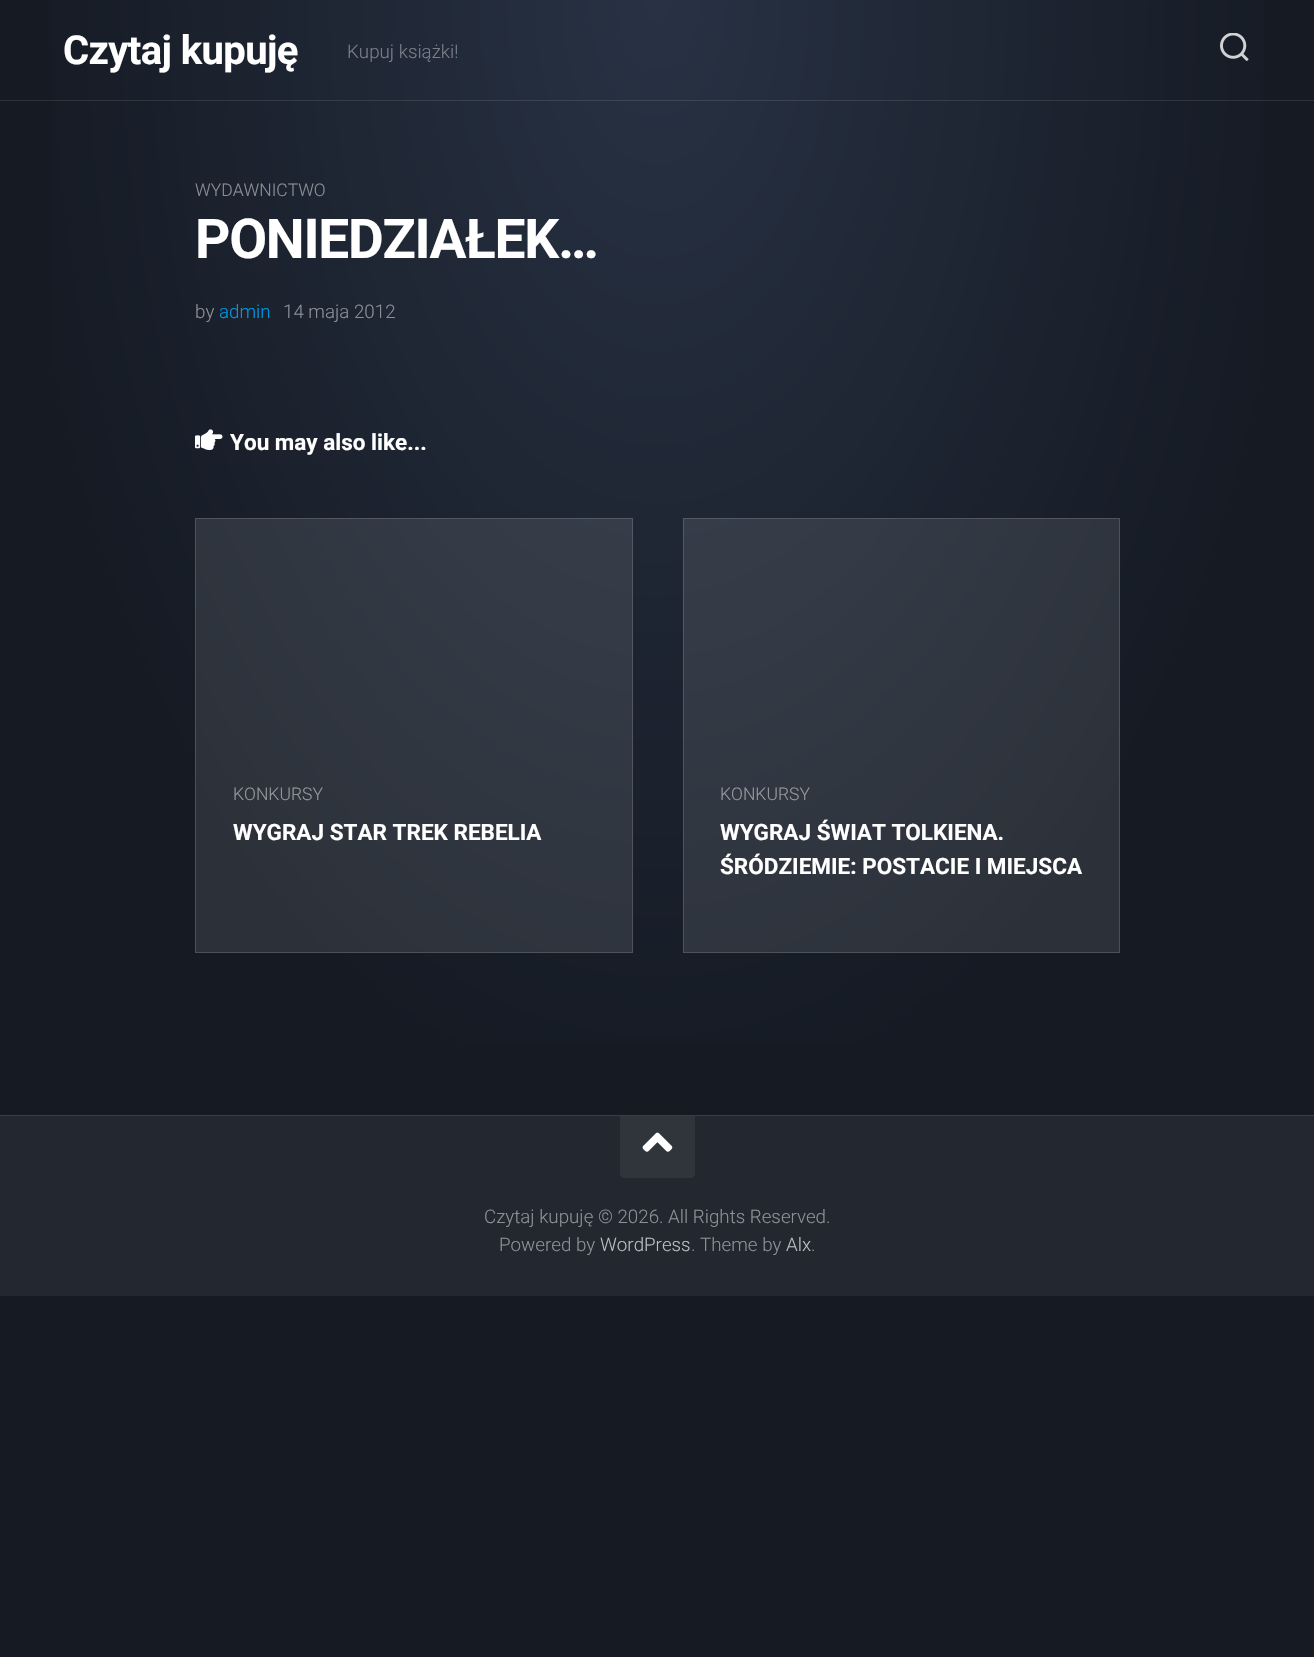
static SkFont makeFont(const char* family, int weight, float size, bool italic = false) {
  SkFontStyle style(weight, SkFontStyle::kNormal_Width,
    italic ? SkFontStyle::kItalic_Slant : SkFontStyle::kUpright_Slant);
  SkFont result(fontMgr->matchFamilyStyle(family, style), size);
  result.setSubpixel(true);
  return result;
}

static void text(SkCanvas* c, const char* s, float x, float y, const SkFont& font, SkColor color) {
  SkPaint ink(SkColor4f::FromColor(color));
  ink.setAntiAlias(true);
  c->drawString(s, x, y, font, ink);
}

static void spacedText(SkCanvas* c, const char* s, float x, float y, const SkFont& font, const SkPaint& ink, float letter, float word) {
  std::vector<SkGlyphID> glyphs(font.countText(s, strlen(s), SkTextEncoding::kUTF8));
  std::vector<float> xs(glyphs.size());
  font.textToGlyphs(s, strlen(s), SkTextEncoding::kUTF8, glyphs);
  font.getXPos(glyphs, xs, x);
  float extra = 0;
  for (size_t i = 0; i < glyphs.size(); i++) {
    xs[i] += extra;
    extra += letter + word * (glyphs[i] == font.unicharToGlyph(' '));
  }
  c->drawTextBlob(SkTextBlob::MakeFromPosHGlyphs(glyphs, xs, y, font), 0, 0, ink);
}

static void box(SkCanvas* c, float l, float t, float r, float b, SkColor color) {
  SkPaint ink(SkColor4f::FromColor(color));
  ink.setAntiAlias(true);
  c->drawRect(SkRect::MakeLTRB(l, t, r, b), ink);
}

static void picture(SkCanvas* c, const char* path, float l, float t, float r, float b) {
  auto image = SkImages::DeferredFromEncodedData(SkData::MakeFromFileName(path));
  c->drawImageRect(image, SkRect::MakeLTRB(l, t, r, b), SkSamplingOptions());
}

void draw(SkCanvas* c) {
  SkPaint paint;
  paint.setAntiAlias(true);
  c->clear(0xff151a23);
  {
    const SkColor colors[] = {0xff283244, 0xff151a23};
    const float stops[] = {0, 1};
    SkMatrix m = SkMatrix::Translate(658, 0).preScale(658, 1125);
    paint.setShader(SkGradientShader::MakeRadial({0, 0}, 1, colors, stops, 2, SkTileMode::kClamp, 0, &m));
    paint.setAlpha(255);
  }
  c->drawRect(SkRect::MakeLTRB(52, 0, 1264, 1042), paint);
  {
    const SkColor colors[] = {0xff3e4757, 0xff2c3139};
    const float stops[] = {0, 1};
    SkMatrix m = SkMatrix::Translate(658, 0).preScale(658, 1125);
    paint.setShader(SkGradientShader::MakeRadial({0, 0}, 1, colors, stops, 2, SkTileMode::kClamp, 0, &m));
    paint.setAlpha(255);
  }
  c->drawRect(SkRect::MakeLTRB(0, 100, 1314, 101), paint);
  c->drawRect(SkRect::MakeLTRB(683, 518, 1120, 953), paint);
  c->drawRect(SkRect::MakeLTRB(195, 518, 633, 953), paint);
  SkFont face1 = makeFont("Roboto", 700, 40);
  paint.setShader(nullptr);
  paint.setColor(0xffffffff);
  spacedText(c, "Czytaj kupuję", 63, 64, face1, paint, -0.6f, 0);
  SkFont face2 = makeFont("Roboto", 300, 18.75f);
  text(c, "Kupuj książki!", 347, 58, face2, 0xff7a7e87);
  picture(c, "img_01.png", 1220, 33, 1249, 61);
  SkFont face3 = makeFont("Roboto", 300, 17.5f);
  text(c, "WYDAWNICTWO", 195, 196, face3, 0xff8d9095);
  SkFont face4 = makeFont("Roboto", 700, 55);
  spacedText(c, "PONIEDZIAŁEK…", 195, 258, face4, paint, -1.25f, 0);
  text(c, "by", 195, 318, face2, 0xff8d9095);
  text(c, "admin", 219, 318, face2, 0xff009ae4);
  text(c, "14 maja 2012", 283, 318, face2, 0xff8d9095);
  picture(c, "img_02.png", 195, 429, 223, 450);
  SkFont face5 = makeFont("Roboto", 700, 22.5f);
  text(c, "You may also like...", 230, 450, face5, 0xffffffff);
  paint.setStyle(SkPaint::kStroke_Style);
  paint.setStrokeWidth(1);
  paint.setColor(0x26ffffff);
  c->drawRect(SkRect::MakeLTRB(195.5f, 518.5f, 632.5f, 952.5f), paint);
  text(c, "KONKURSY", 233, 800, face3, 0xff96999d);
  text(c, "WYGRAJ STAR TREK REBELIA", 233, 840, face5, 0xffffffff);
  c->drawRect(SkRect::MakeLTRB(683.5f, 518.5f, 1119.5f, 952.5f), paint);
  text(c, "KONKURSY", 720, 800, face3, 0xff96999d);
  text(c, "WYGRAJ ŚWIAT TOLKIENA.", 720, 840, face5, 0xffffffff);
  text(c, "ŚRÓDZIEMIE: POSTACIE I MIEJSCA", 720, 874, face5, 0xffffffff);
  box(c, 0, 1116, 1314, 1296, 0xff232830);
  box(c, 0, 1115, 1314, 1116, 0xff393e45);
  paint.setStyle(SkPaint::kFill_Style);
  paint.setColor(0xff30353c);
  c->drawPath(SkPathBuilder().moveTo(620, 1116).lineTo(695, 1116).lineTo(695, 1173).cubicTo(695, 1176, 693, 1178, 690, 1178).lineTo(625, 1178).cubicTo(622, 1178, 620, 1176, 620, 1173).close().detach(), paint);
  picture(c, "img_03.png", 642, 1132, 673, 1152);
  text(c, "Czytaj kupuję © 2026. All Rights Reserved.", 484, 1223, face2, 0xff8d9095);
  text(c, "Powered by", 499, 1251, face2, 0xff8d9095);
  text(c, "WordPress", 600, 1251, face2, 0xffbdbfc1);
  text(c, ". Theme by", 691, 1251, face2, 0xff8d9095);
  text(c, "Alx", 786, 1251, face2, 0xffbdbfc1);
  text(c, ".", 811, 1251, face2, 0xff8d9095);
}
